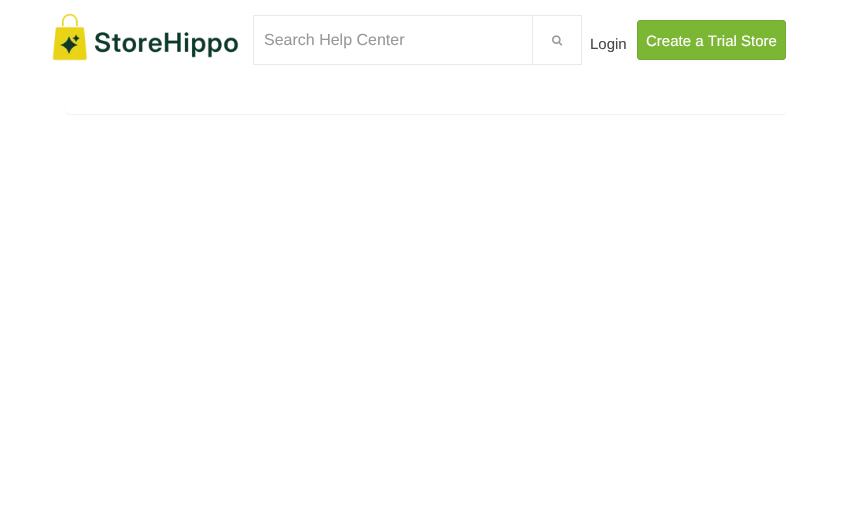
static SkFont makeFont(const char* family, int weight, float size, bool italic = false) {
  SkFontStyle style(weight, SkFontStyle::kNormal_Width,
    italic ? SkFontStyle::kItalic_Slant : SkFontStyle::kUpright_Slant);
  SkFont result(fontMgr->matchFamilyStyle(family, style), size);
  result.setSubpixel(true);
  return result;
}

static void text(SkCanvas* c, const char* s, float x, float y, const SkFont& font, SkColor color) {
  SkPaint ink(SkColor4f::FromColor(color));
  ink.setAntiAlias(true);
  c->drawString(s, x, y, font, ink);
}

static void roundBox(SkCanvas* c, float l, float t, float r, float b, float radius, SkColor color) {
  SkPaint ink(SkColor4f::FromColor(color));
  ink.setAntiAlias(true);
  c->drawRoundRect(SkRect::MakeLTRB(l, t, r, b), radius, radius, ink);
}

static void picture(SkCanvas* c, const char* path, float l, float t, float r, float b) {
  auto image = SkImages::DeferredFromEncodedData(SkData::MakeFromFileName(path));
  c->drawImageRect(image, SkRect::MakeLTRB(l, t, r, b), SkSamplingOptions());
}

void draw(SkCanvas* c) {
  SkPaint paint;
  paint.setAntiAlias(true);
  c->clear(0xffffffff);
  picture(c, "img_01.png", 52, 13, 239, 61);
  paint.setStyle(SkPaint::kStroke_Style);
  paint.setStrokeWidth(1);
  paint.setColor(0xffeaeaea);
  c->drawRect(SkRect::MakeLTRB(253.5f, 15.5f, 532.5f, 64.5f), paint);
  SkFont face1 = makeFont("Liberation Sans", 400, 16);
  text(c, "Search Help Center", 264, 45, face1, 0xff999999);
  c->drawRect(SkRect::MakeLTRB(532.5f, 15.5f, 581.5f, 64.5f), paint);
  picture(c, "img_02.png", 552, 35, 563, 46);
  SkFont face2 = makeFont("Liberation Sans", 400, 15);
  text(c, "Login", 590, 49, face2, 0xff4a4a4a);
  paint.setStyle(SkPaint::kFill_Style);
  paint.setColor(0xff7bb735);
  c->drawRoundRect(SkRect::MakeLTRB(637.5f, 20.5f, 785.5f, 59.5f), 2.5f, 2.5f, paint);
  paint.setStyle(SkPaint::kStroke_Style);
  paint.setColor(0xff75a937);
  c->drawRoundRect(SkRect::MakeLTRB(637.5f, 20.5f, 785.5f, 59.5f), 2.5f, 2.5f, paint);
  text(c, "Create a Trial Store", 646, 46, face2, 0xffffffff);
  paint.setStyle(SkPaint::kFill_Style);
  paint.setColor(0x0d000000);
  paint.setMaskFilter(SkMaskFilter::MakeBlur(kNormal_SkBlurStyle, 0.5f));
  c->drawRoundRect(SkRect::MakeLTRB(66, 83, 786, 115), 4, 4, paint);
  paint.setMaskFilter(nullptr);
  roundBox(c, 66, 82, 786, 114, 4, 0xffffffff);
}
